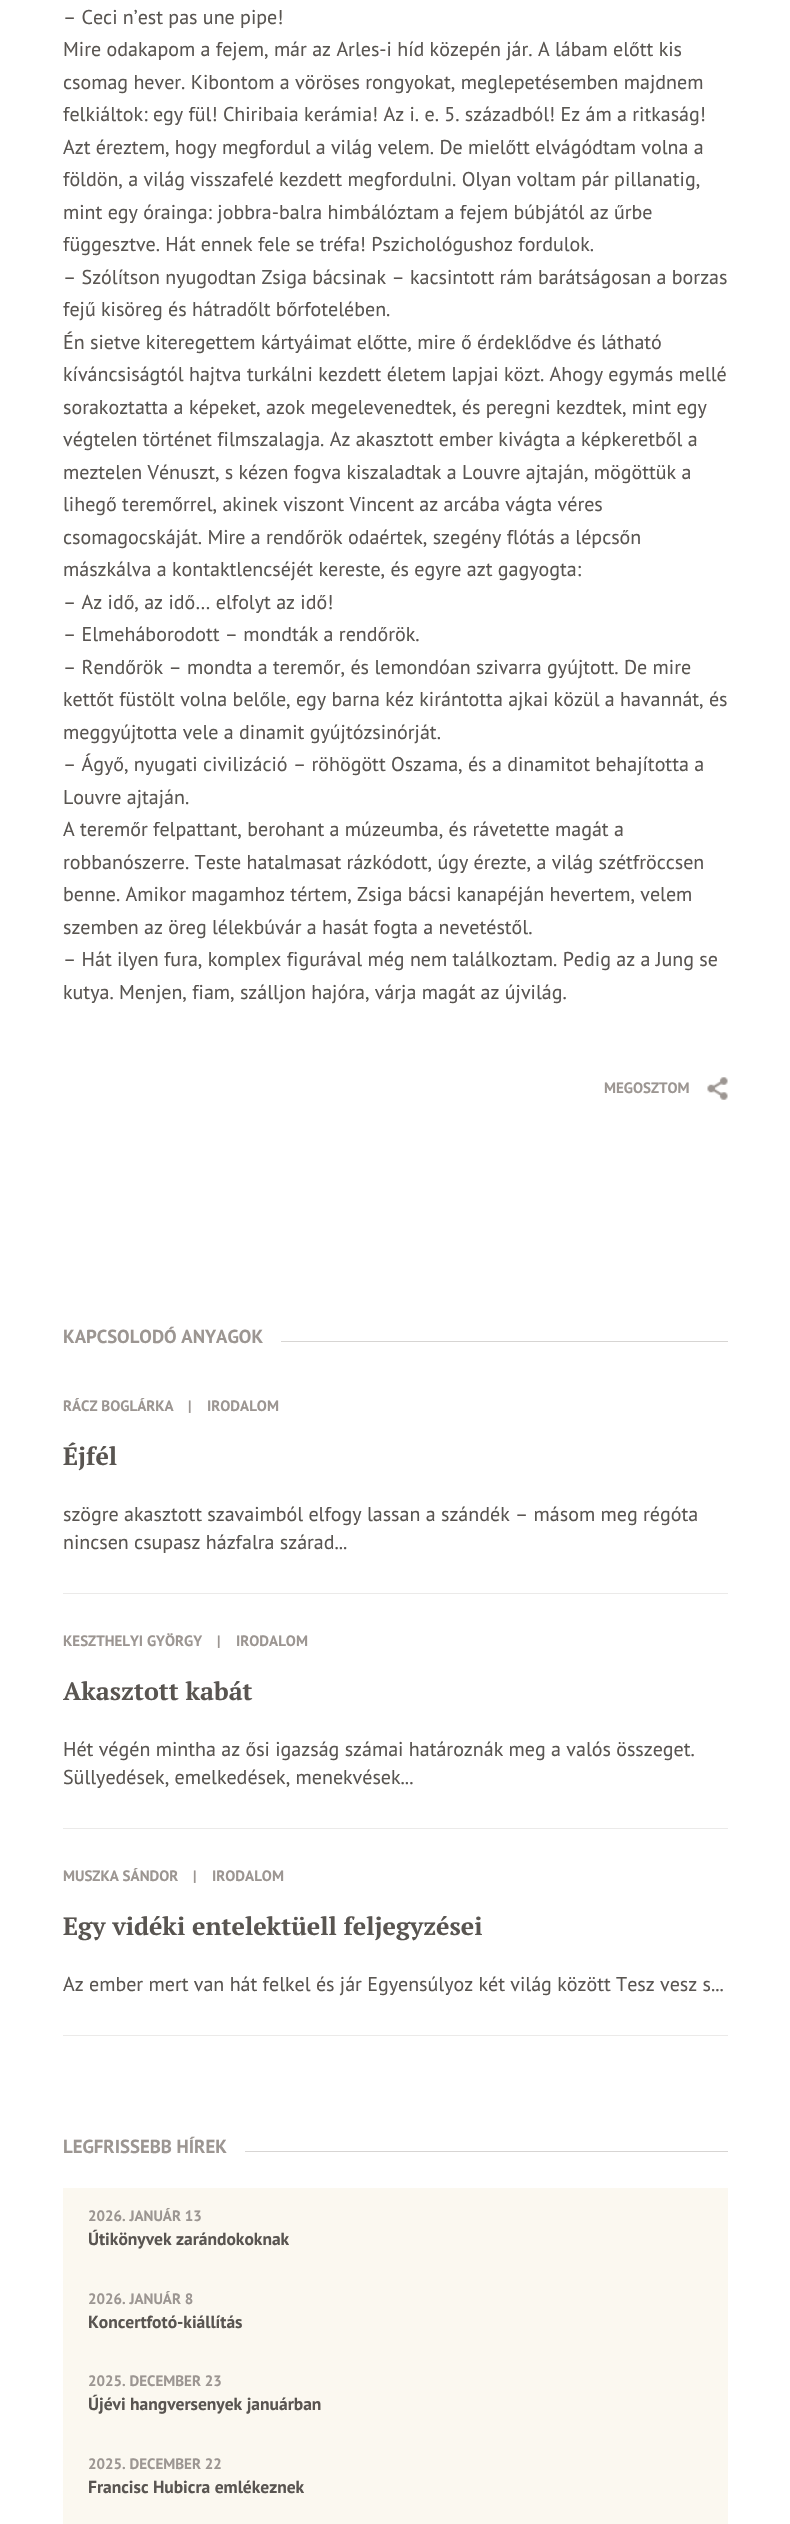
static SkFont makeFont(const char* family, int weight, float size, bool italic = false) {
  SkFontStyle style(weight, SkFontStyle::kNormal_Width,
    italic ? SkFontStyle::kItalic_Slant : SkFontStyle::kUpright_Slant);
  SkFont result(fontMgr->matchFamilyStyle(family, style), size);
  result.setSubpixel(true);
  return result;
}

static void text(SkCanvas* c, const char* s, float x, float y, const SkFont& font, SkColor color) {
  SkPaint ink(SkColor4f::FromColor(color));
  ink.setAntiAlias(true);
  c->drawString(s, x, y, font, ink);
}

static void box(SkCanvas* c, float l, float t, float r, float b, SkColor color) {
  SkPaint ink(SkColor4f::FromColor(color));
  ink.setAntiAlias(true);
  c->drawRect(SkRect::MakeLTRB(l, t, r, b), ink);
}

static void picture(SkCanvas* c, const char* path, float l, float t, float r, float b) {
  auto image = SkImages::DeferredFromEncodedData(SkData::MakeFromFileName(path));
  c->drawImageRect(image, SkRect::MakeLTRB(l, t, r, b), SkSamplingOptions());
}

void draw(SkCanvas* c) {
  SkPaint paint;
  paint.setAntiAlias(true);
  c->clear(0xffffffff);
  SkFont face1 = makeFont("PT Sans", 400, 20);
  text(c, "– Ceci n’est pas une pipe!", 63, 24, face1, 0xff595551);
  text(c, "Mire odakapom a fejem, már az Arles-i híd közepén jár. A lábam előtt kis", 63, 56, face1, 0xff595551);
  text(c, "csomag hever. Kibontom a vöröses rongyokat, meglepetésemben majdnem", 63, 89, face1, 0xff595551);
  text(c, "felkiáltok: egy fül! Chiribaia kerámia! Az i. e. 5. századból! Ez ám a ritkaság!", 63, 121, face1, 0xff595551);
  text(c, "Azt éreztem, hogy megfordul a világ velem. De mielőtt elvágódtam volna a", 63, 154, face1, 0xff595551);
  text(c, "földön, a világ visszafelé kezdett megfordulni. Olyan voltam pár pillanatig,", 63, 186, face1, 0xff595551);
  text(c, "mint egy órainga: jobbra-balra himbálóztam a fejem búbjától az űrbe", 63, 219, face1, 0xff595551);
  text(c, "függesztve. Hát ennek fele se tréfa! Pszichológushoz fordulok.", 63, 251, face1, 0xff595551);
  text(c, "– Szólítson nyugodtan Zsiga bácsinak – kacsintott rám barátságosan a borzas", 63, 284, face1, 0xff595551);
  text(c, "fejű kisöreg és hátradőlt bőrfotelében.", 63, 316, face1, 0xff595551);
  text(c, "Én sietve kiteregettem kártyáimat előtte, mire ő érdeklődve és látható", 63, 349, face1, 0xff595551);
  text(c, "kíváncsiságtól hajtva turkálni kezdett életem lapjai közt. Ahogy egymás mellé", 63, 381, face1, 0xff595551);
  text(c, "sorakoztatta a képeket, azok megelevenedtek, és peregni kezdtek, mint egy", 63, 414, face1, 0xff595551);
  text(c, "végtelen történet filmszalagja. Az akasztott ember kivágta a képkeretből a", 63, 446, face1, 0xff595551);
  text(c, "meztelen Vénuszt, s kézen fogva kiszaladtak a Louvre ajtaján, mögöttük a", 63, 479, face1, 0xff595551);
  text(c, "lihegő teremőrrel, akinek viszont Vincent az arcába vágta véres", 63, 511, face1, 0xff595551);
  text(c, "csomagocskáját. Mire a rendőrök odaértek, szegény flótás a lépcsőn", 63, 544, face1, 0xff595551);
  text(c, "mászkálva a kontaktlencséjét kereste, és egyre azt gagyogta:", 63, 576, face1, 0xff595551);
  text(c, "– Az idő, az idő… elfolyt az idő!", 63, 609, face1, 0xff595551);
  text(c, "– Elmeháborodott – mondták a rendőrök.", 63, 641, face1, 0xff595551);
  text(c, "– Rendőrök – mondta a teremőr, és lemondóan szivarra gyújtott. De mire", 63, 674, face1, 0xff595551);
  text(c, "kettőt füstölt volna belőle, egy barna kéz kirántotta ajkai közül a havannát, és", 63, 706, face1, 0xff595551);
  text(c, "meggyújtotta vele a dinamit gyújtózsinórját.", 63, 739, face1, 0xff595551);
  text(c, "– Ágyő, nyugati civilizáció – röhögött Oszama, és a dinamitot behajította a", 63, 771, face1, 0xff595551);
  text(c, "Louvre ajtaján.", 63, 804, face1, 0xff595551);
  text(c, "A teremőr felpattant, berohant a múzeumba, és rávetette magát a", 63, 836, face1, 0xff595551);
  text(c, "robbanószerre. Teste hatalmasat rázkódott, úgy érezte, a világ szétfröccsen", 63, 869, face1, 0xff595551);
  text(c, "benne. Amikor magamhoz tértem, Zsiga bácsi kanapéján hevertem, velem", 63, 901, face1, 0xff595551);
  text(c, "szemben az öreg lélekbúvár a hasát fogta a nevetéstől.", 63, 934, face1, 0xff595551);
  text(c, "– Hát ilyen fura, komplex figurával még nem találkoztam. Pedig az a Jung se", 63, 966, face1, 0xff595551);
  text(c, "kutya. Menjen, fiam, szálljon hajóra, várja magát az újvilág.", 63, 999, face1, 0xff595551);
  SkFont face2 = makeFont("PT Sans", 700, 15);
  text(c, "MEGOSZTOM", 604, 1093, face2, 0xff9c9692);
  picture(c, "img_01.png", 707, 1077, 728, 1100);
  SkFont face3 = makeFont("PT Sans", 700, 18.75f);
  text(c, "KAPCSOLODÓ ANYAGOK", 63, 1343, face3, 0xff9c9692);
  box(c, 281, 1341, 728, 1342, 0xffd7d5d3);
  box(c, 63, 1593, 728, 1594, 0xffebeae9);
  text(c, "RÁCZ BOGLÁRKA", 63, 1411, face2, 0xff9c9692);
  text(c, "|", 188, 1411, face2, 0xff9c9692);
  text(c, "IRODALOM", 207, 1411, face2, 0xff9c9692);
  SkFont face4 = makeFont("PT Serif", 700, 25);
  text(c, "Éjfél", 63, 1465, face4, 0xff595551);
  text(c, "szögre akasztott szavaimból elfogy lassan a szándék – másom meg régóta", 63, 1521, face1, 0xff595551);
  text(c, "nincsen csupasz házfalra szárad...", 63, 1549, face1, 0xff595551);
  box(c, 63, 1828, 728, 1829, 0xffebeae9);
  text(c, "KESZTHELYI GYÖRGY", 63, 1646, face2, 0xff9c9692);
  text(c, "|", 217, 1646, face2, 0xff9c9692);
  text(c, "IRODALOM", 236, 1646, face2, 0xff9c9692);
  text(c, "Akasztott kabát", 63, 1700, face4, 0xff595551);
  text(c, "Hét végén mintha az ősi igazság számai határoznák meg a valós összeget.", 63, 1756, face1, 0xff595551);
  text(c, "Süllyedések, emelkedések, menekvések...", 63, 1784, face1, 0xff595551);
  box(c, 63, 2035, 728, 2036, 0xffebeae9);
  text(c, "MUSZKA SÁNDOR", 63, 1881, face2, 0xff9c9692);
  text(c, "|", 193, 1881, face2, 0xff9c9692);
  text(c, "IRODALOM", 212, 1881, face2, 0xff9c9692);
  text(c, "Egy vidéki entelektüell feljegyzései", 63, 1935, face4, 0xff595551);
  text(c, "Az ember mert van hát felkel és jár Egyensúlyoz két világ között Tesz vesz s...", 63, 1991, face1, 0xff595551);
  text(c, "LEGFRISSEBB HÍREK", 63, 2153, face3, 0xff9c9692);
  box(c, 245, 2151, 728, 2152, 0xffd7d5d3);
  box(c, 63, 2188, 728, 2524, 0xfffbf8f0);
  text(c, "2026. JANUÁR 13", 88, 2221, face2, 0xff9c9692);
  SkFont face5 = makeFont("PT Sans", 700, 17.5f);
  text(c, "Útikönyvek zarándokoknak", 88, 2245, face5, 0xff595551);
  text(c, "2026. JANUÁR 8", 88, 2304, face2, 0xff9c9692);
  text(c, "Koncertfotó-kiállítás", 88, 2328, face5, 0xff595551);
  text(c, "2025. DECEMBER 23", 88, 2386, face2, 0xff9c9692);
  text(c, "Újévi hangversenyek januárban", 88, 2410, face5, 0xff595551);
  text(c, "2025. DECEMBER 22", 88, 2469, face2, 0xff9c9692);
  text(c, "Francisc Hubicra emlékeznek", 88, 2493, face5, 0xff595551);
}
